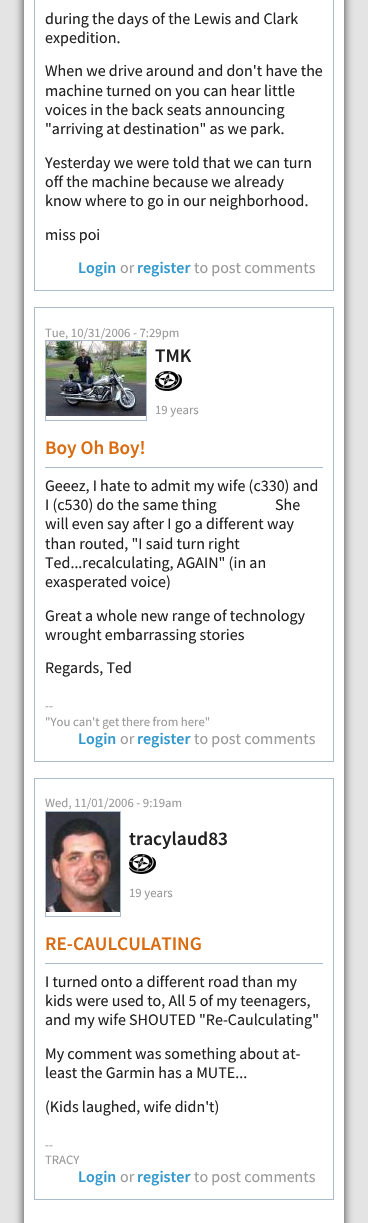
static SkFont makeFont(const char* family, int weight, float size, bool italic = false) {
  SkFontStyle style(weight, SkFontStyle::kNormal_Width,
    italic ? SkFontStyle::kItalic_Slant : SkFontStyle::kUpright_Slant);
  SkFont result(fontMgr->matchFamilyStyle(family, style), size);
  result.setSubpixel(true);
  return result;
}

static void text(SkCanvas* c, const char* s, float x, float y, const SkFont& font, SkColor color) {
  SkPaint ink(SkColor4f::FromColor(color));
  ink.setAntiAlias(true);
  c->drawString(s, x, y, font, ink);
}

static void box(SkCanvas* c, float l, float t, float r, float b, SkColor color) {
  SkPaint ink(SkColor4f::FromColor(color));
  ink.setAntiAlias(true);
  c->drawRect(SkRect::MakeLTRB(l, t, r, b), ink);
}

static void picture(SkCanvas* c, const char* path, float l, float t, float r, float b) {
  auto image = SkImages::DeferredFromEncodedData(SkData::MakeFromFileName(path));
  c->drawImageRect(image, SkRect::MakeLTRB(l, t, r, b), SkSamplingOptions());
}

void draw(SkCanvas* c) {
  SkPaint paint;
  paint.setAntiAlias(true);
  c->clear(0xffe4e4e4);
  paint.setColor(0xbf000000);
  paint.setMaskFilter(SkMaskFilter::MakeBlur(kNormal_SkBlurStyle, 5));
  c->drawRoundRect(SkRect::MakeLTRB(24, -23, 344, 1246), 8, 8, paint);
  paint.setMaskFilter(nullptr);
  box(c, 24, 0, 344, 1223, 0xffffffff);
  paint.setStyle(SkPaint::kStroke_Style);
  paint.setStrokeWidth(1);
  paint.setColor(0xffaabbcc);
  c->drawRect(SkRect::MakeLTRB(34.5f, -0.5f, 333.5f, 290.5f), paint);
  SkFont face1 = makeFont("Source Sans Pro", 400, 16);
  text(c, "during the days of the Lewis and Clark", 45, 24, face1, 0xff222222);
  text(c, "expedition.", 45, 43, face1, 0xff222222);
  text(c, "When we drive around and don't have the", 45, 76, face1, 0xff222222);
  text(c, "machine turned on you can hear little", 45, 96, face1, 0xff222222);
  text(c, "voices in the back seats announcing", 45, 115, face1, 0xff222222);
  text(c, "\"arriving at destination\" as we park.", 45, 134, face1, 0xff222222);
  text(c, "Yesterday we were told that we can turn", 45, 168, face1, 0xff222222);
  text(c, "off the machine because we already", 45, 187, face1, 0xff222222);
  text(c, "know where to go in our neighborhood.", 45, 206, face1, 0xff222222);
  text(c, "miss poi", 45, 240, face1, 0xff222222);
  SkFont face2 = makeFont("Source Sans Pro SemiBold", 600, 16);
  text(c, "Login", 78, 273, face2, 0xff3399cc);
  text(c, "or", 120, 273, face1, 0xff999999);
  text(c, "register", 137, 273, face2, 0xff3399cc);
  text(c, "to post comments", 194, 273, face1, 0xff999999);
  c->drawRect(SkRect::MakeLTRB(34.5f, 307.5f, 333.5f, 761.5f), paint);
  SkFont face3 = makeFont("Source Sans Pro", 400, 12.75f);
  text(c, "Tue, 10/31/2006 - 7:29pm", 45, 337, face3, 0xff999999);
  c->drawRect(SkRect::MakeLTRB(45.5f, 340.5f, 146.5f, 420.5f), paint);
  picture(c, "img_01.png", 46, 341, 146, 416);
  SkFont face4 = makeFont("Source Sans Pro SemiBold", 600, 19.25f);
  text(c, "TMK", 155, 362, face4, 0xff222222);
  picture(c, "img_02.png", 155, 371, 182, 391);
  text(c, "19 years", 155, 414, face3, 0xff999999);
  text(c, "Boy Oh Boy!", 45, 454, face4, 0xffd96b11);
  box(c, 45, 467, 323, 468, 0xffaabbcc);
  text(c, "Geeez, I hate to admit my wife (c330) and", 45, 491, face1, 0xff222222);
  text(c, "I (c530) do the same thing", 45, 510, face1, 0xff222222);
  text(c, "She", 275, 510, face1, 0xff222222);
  text(c, "will even say after I go a different way", 45, 529, face1, 0xff222222);
  text(c, "than routed, \"I said turn right", 45, 549, face1, 0xff222222);
  text(c, "Ted...recalculating, AGAIN\" (in an", 45, 568, face1, 0xff222222);
  text(c, "exasperated voice)", 45, 587, face1, 0xff222222);
  text(c, "Great a whole new range of technology", 45, 621, face1, 0xff222222);
  text(c, "wrought embarrassing stories", 45, 640, face1, 0xff222222);
  text(c, "Regards, Ted", 45, 673, face1, 0xff222222);
  text(c, "--", 45, 710, face3, 0xff999999);
  text(c, "\"You can't get there from here\"", 45, 726, face3, 0xff999999);
  text(c, "Login", 78, 744, face2, 0xff3399cc);
  text(c, "or", 120, 744, face1, 0xff999999);
  text(c, "register", 137, 744, face2, 0xff3399cc);
  text(c, "to post comments", 194, 744, face1, 0xff999999);
  c->drawRect(SkRect::MakeLTRB(34.5f, 778.5f, 333.5f, 1199.5f), paint);
  text(c, "Wed, 11/01/2006 - 9:19am", 45, 807, face3, 0xff999999);
  c->drawRect(SkRect::MakeLTRB(45.5f, 811.5f, 120.5f, 916.5f), paint);
  picture(c, "img_03.png", 46, 812, 120, 912);
  text(c, "tracylaud83", 129, 845, face4, 0xff222222);
  picture(c, "img_02.png", 129, 854, 156, 874);
  text(c, "19 years", 129, 897, face3, 0xff999999);
  text(c, "RE-CAULCULATING", 45, 950, face4, 0xffd96b11);
  box(c, 45, 963, 323, 964, 0xffaabbcc);
  text(c, "I turned onto a different road than my", 45, 987, face1, 0xff222222);
  text(c, "kids were used to, All 5 of my teenagers,", 45, 1006, face1, 0xff222222);
  text(c, "and my wife SHOUTED \"Re-Caulculating\"", 45, 1025, face1, 0xff222222);
  text(c, "My comment was something about at-", 45, 1059, face1, 0xff222222);
  text(c, "least the Garmin has a MUTE...", 45, 1078, face1, 0xff222222);
  text(c, "(Kids laughed, wife didn't)", 45, 1112, face1, 0xff222222);
  text(c, "--", 45, 1149, face3, 0xff999999);
  text(c, "TRACY", 45, 1164, face3, 0xff999999);
  text(c, "Login", 78, 1182, face2, 0xff3399cc);
  text(c, "or", 120, 1182, face1, 0xff999999);
  text(c, "register", 137, 1182, face2, 0xff3399cc);
  text(c, "to post comments", 194, 1182, face1, 0xff999999);
}
